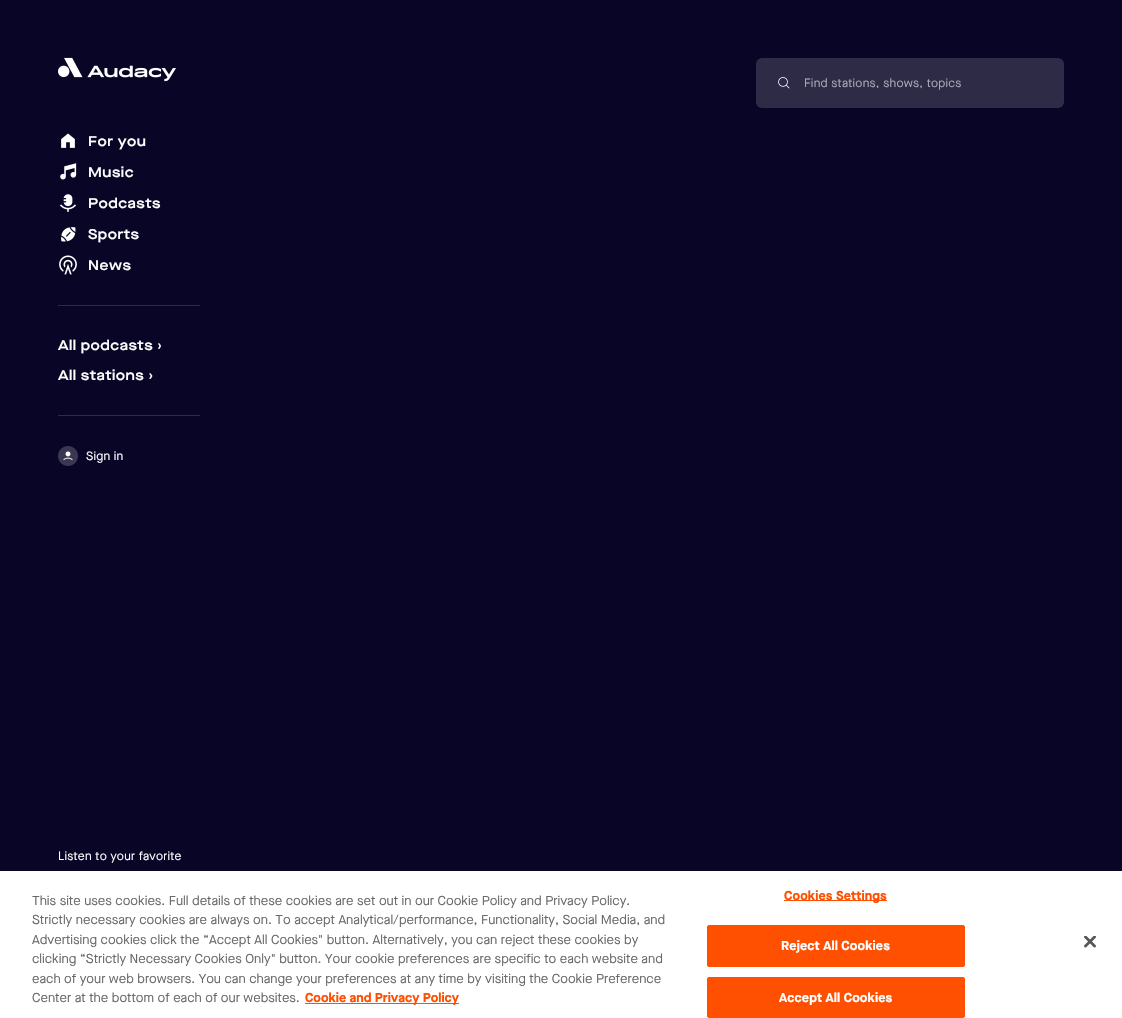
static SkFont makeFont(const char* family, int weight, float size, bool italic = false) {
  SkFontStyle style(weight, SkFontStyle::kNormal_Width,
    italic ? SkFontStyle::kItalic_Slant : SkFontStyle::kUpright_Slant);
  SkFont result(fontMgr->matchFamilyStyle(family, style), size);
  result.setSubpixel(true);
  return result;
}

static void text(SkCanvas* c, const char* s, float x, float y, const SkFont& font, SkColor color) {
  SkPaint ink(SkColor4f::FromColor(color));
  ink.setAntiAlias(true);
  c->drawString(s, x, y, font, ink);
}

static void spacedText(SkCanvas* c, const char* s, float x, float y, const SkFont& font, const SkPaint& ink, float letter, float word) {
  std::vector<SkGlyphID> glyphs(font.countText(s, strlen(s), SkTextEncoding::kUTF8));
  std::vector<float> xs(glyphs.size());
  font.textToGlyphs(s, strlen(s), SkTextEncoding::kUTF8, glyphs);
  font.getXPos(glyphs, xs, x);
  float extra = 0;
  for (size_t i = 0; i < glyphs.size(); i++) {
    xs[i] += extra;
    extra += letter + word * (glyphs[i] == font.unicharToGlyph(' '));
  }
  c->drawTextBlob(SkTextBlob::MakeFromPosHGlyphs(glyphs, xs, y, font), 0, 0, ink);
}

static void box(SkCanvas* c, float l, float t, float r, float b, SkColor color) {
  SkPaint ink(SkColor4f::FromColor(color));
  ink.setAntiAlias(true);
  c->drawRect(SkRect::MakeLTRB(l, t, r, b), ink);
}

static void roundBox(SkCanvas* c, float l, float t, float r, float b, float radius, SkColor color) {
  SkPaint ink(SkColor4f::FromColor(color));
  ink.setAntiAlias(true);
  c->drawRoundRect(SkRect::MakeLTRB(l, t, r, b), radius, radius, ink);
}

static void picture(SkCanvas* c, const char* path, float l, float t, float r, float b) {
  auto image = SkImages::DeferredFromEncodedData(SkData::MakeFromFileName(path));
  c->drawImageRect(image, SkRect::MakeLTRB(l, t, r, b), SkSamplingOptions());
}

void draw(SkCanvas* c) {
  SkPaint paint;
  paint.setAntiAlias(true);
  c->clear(0xff090527);
  roundBox(c, 756, 58, 1064, 108, 6, 0xff2e2b47);
  picture(c, "img_01.png", 778, 77, 790, 89);
  SkFont face1 = makeFont("Maison Neue", 400, 12);
  paint.setColor(0xffabaab5);
  spacedText(c, "Find stations, shows, topics", 804, 87, face1, paint, 0.25f, 0);
  picture(c, "img_02.png", 58, 57, 176, 82);
  box(c, 58, 305, 200, 306, 0xff2e2b47);
  picture(c, "img_03.png", 61, 133, 75, 148);
  SkFont face2 = makeFont("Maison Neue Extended", 600, 14);
  paint.setColor(0xffffffff);
  spacedText(c, "For you", 88, 146, face2, paint, 0.5f, 0);
  picture(c, "img_04.png", 60, 163, 77, 180);
  spacedText(c, "Music", 88, 177, face2, paint, 0.5f, 0);
  picture(c, "img_05.png", 60, 194, 76, 212);
  spacedText(c, "Podcasts", 88, 208, face2, paint, 0.5f, 0);
  picture(c, "img_06.png", 61, 227, 76, 242);
  spacedText(c, "Sports", 88, 239, face2, paint, 0.5f, 0);
  picture(c, "img_07.png", 59, 255, 77, 275);
  spacedText(c, "News", 88, 270, face2, paint, 0.5f, 0);
  box(c, 58, 415, 200, 416, 0xff2e2b47);
  spacedText(c, "All podcasts ›", 58, 350, face2, paint, 0.5f, 0);
  spacedText(c, "All stations ›", 58, 380, face2, paint, 0.5f, 0);
  picture(c, "img_08.png", 58, 446, 78, 466);
  spacedText(c, "Sign in", 86, 460, face1, paint, 0.25f, 0);
  spacedText(c, "Listen to your favorite", 58, 860, face1, paint, 0.25f, 0);
  box(c, 0, 871, 1122, 1018, 0xffffffff);
  SkFont face3 = makeFont("Maison Neue", 400, 13);
  text(c, "This site uses cookies. Full details of these cookies are set out in our Cookie Policy and Privacy Policy.", 32, 905, face3, 0xff696969);
  text(c, "Strictly necessary cookies are always on. To accept Analytical/performance, Functionality, Social Media, and", 32, 924, face3, 0xff696969);
  text(c, "Advertising cookies click the “Accept All Cookies\" button. Alternatively, you can reject these cookies by", 32, 944, face3, 0xff696969);
  text(c, "clicking “Strictly Necessary Cookies Only\" button. Your cookie preferences are specific to each website and", 32, 963, face3, 0xff696969);
  text(c, "each of your web browsers. You can change your preferences at any time by visiting the Cookie Preference", 32, 983, face3, 0xff696969);
  text(c, "Center at the bottom of each of our websites.", 32, 1002, face3, 0xff696969);
  box(c, 305, 1003, 459, 1004, 0xfffe5000);
  SkFont face4 = makeFont("Maison Neue", 700, 13);
  text(c, "Cookie and Privacy Policy", 305, 1002, face4, 0xfffe5000);
  box(c, 784, 900, 887, 901, 0xfffe5000);
  paint.setColor(0xfffe5000);
  spacedText(c, "Cookies Settings", 784, 900, face4, paint, 0.1f, 0);
  c->drawRoundRect(SkRect::MakeLTRB(707.5f, 925.5f, 964.5f, 966.5f), 1.5f, 1.5f, paint);
  paint.setStyle(SkPaint::kStroke_Style);
  paint.setStrokeWidth(1);
  c->drawRoundRect(SkRect::MakeLTRB(707.5f, 925.5f, 964.5f, 966.5f), 1.5f, 1.5f, paint);
  paint.setStyle(SkPaint::kFill_Style);
  paint.setColor(0xffffffff);
  spacedText(c, "Reject All Cookies", 781, 950, face4, paint, 0.1f, 0);
  paint.setColor(0xfffe5000);
  c->drawRoundRect(SkRect::MakeLTRB(707.5f, 977.5f, 964.5f, 1017.5f), 1.5f, 1.5f, paint);
  paint.setStyle(SkPaint::kStroke_Style);
  c->drawRoundRect(SkRect::MakeLTRB(707.5f, 977.5f, 964.5f, 1017.5f), 1.5f, 1.5f, paint);
  paint.setStyle(SkPaint::kFill_Style);
  paint.setColor(0xffffffff);
  spacedText(c, "Accept All Cookies", 779, 1002, face4, paint, 0.1f, 0);
  picture(c, "img_09.png", 1084, 936, 1096, 948);
}
